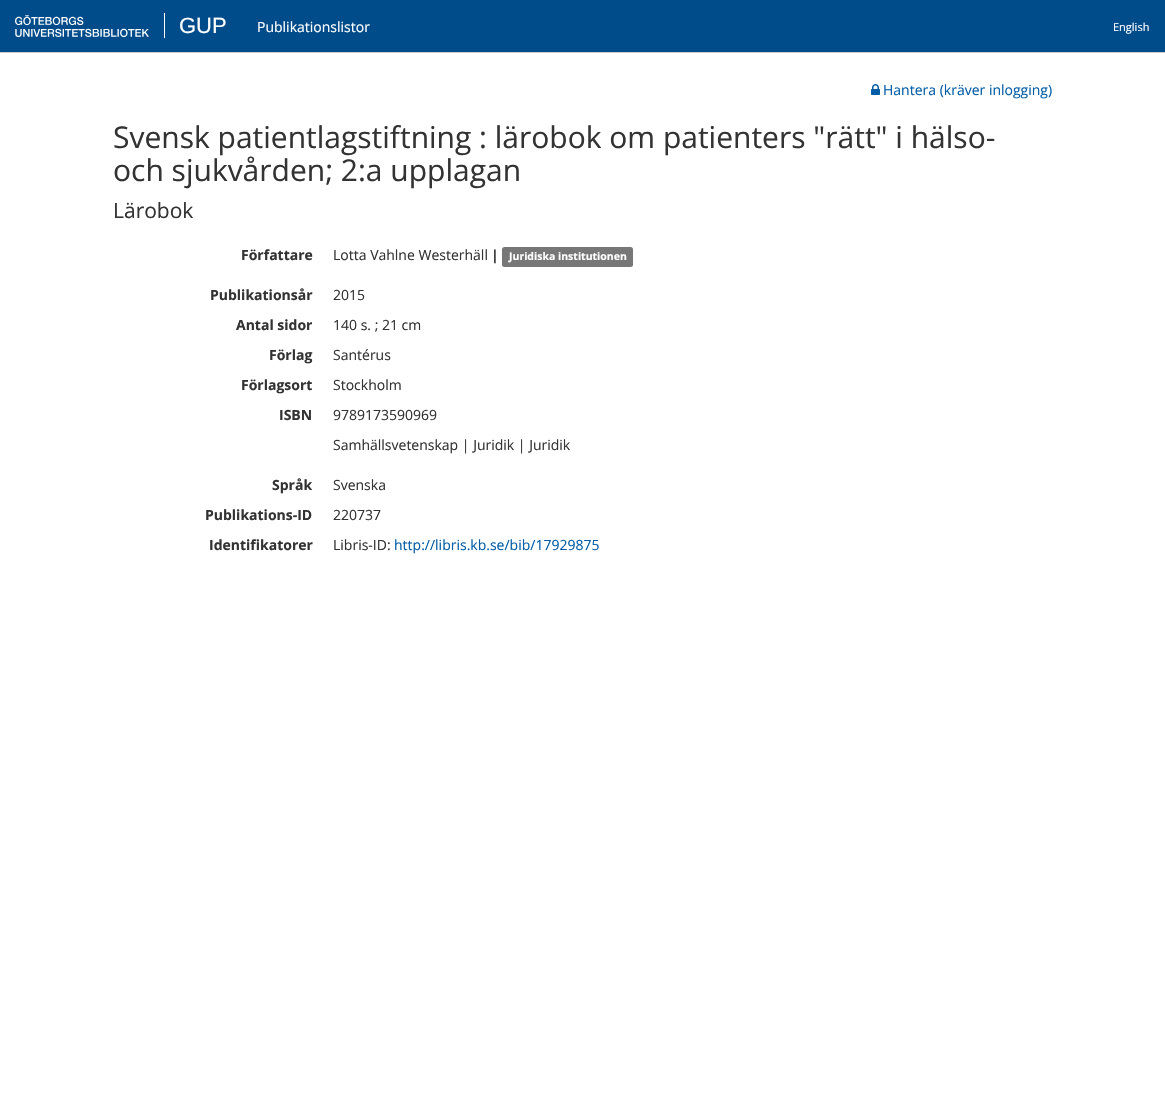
static SkFont makeFont(const char* family, int weight, float size, bool italic = false) {
  SkFontStyle style(weight, SkFontStyle::kNormal_Width,
    italic ? SkFontStyle::kItalic_Slant : SkFontStyle::kUpright_Slant);
  SkFont result(fontMgr->matchFamilyStyle(family, style), size);
  result.setSubpixel(true);
  return result;
}

static void text(SkCanvas* c, const char* s, float x, float y, const SkFont& font, SkColor color) {
  SkPaint ink(SkColor4f::FromColor(color));
  ink.setAntiAlias(true);
  c->drawString(s, x, y, font, ink);
}

static void box(SkCanvas* c, float l, float t, float r, float b, SkColor color) {
  SkPaint ink(SkColor4f::FromColor(color));
  ink.setAntiAlias(true);
  c->drawRect(SkRect::MakeLTRB(l, t, r, b), ink);
}

static void roundBox(SkCanvas* c, float l, float t, float r, float b, float radius, SkColor color) {
  SkPaint ink(SkColor4f::FromColor(color));
  ink.setAntiAlias(true);
  c->drawRoundRect(SkRect::MakeLTRB(l, t, r, b), radius, radius, ink);
}

static void picture(SkCanvas* c, const char* path, float l, float t, float r, float b) {
  auto image = SkImages::DeferredFromEncodedData(SkData::MakeFromFileName(path));
  c->drawImageRect(image, SkRect::MakeLTRB(l, t, r, b), SkSamplingOptions());
}

void draw(SkCanvas* c) {
  SkPaint paint;
  paint.setAntiAlias(true);
  c->clear(0xffffffff);
  box(c, 0, 0, 1165, 52, 0xff004b89);
  box(c, 0, 52, 1165, 53, 0xffcccccc);
  picture(c, "img_01.png", 15, 15, 149, 37);
  box(c, 164, 13, 165, 38, 0xffffffff);
  SkFont face1 = makeFont("Liberation Sans", 400, 22);
  text(c, "GUP", 179, 33, face1, 0xffffffff);
  SkFont face2 = makeFont("Open Sans", 400, 14);
  text(c, "Publikationslistor", 257, 32, face2, 0xffffffff);
  SkFont face3 = makeFont("Open Sans", 400, 11);
  text(c, "English", 1113, 31, face3, 0xffffffff);
  picture(c, "img_02.png", 871, 84, 880, 95);
  text(c, "Hantera (kräver inlogging)", 883, 95, face2, 0xff025da6);
  SkFont face4 = makeFont("Open Sans", 400, 30);
  text(c, "Svensk patientlagstiftning : lärobok om patienters \"rätt\" i hälso-", 113, 148, face4, 0xff333333);
  text(c, "och sjukvården; 2:a upplagan", 113, 181, face4, 0xff333333);
  SkFont face5 = makeFont("Open Sans", 400, 21);
  text(c, "Lärobok", 113, 218, face5, 0xff333333);
  SkFont face6 = makeFont("Open Sans", 700, 14);
  text(c, "Författare", 241, 260, face6, 0xff333333);
  text(c, "Lotta Vahlne Westerhäll", 333, 260, face2, 0xff333333);
  text(c, "|", 491, 260, face6, 0xff333333);
  roundBox(c, 502, 247, 633, 267, 2.5f, 0xff777777);
  SkFont face7 = makeFont("Open Sans", 700, 10.5f);
  text(c, "Juridiska institutionen", 509, 260, face7, 0xffffffff);
  text(c, "Publikationsår", 210, 300, face6, 0xff333333);
  text(c, "2015", 333, 300, face2, 0xff333333);
  text(c, "Antal sidor", 236, 330, face6, 0xff333333);
  text(c, "140 s. ; 21 cm", 333, 330, face2, 0xff333333);
  text(c, "Förlag", 269, 360, face6, 0xff333333);
  text(c, "Santérus", 333, 360, face2, 0xff333333);
  text(c, "Förlagsort", 241, 390, face6, 0xff333333);
  text(c, "Stockholm", 333, 390, face2, 0xff333333);
  text(c, "ISBN", 279, 420, face6, 0xff333333);
  text(c, "9789173590969", 333, 420, face2, 0xff333333);
  text(c, "Samhällsvetenskap | Juridik | Juridik", 333, 450, face2, 0xff333333);
  text(c, "Språk", 272, 490, face6, 0xff333333);
  text(c, "Svenska", 333, 490, face2, 0xff333333);
  text(c, "Publikations-ID", 205, 520, face6, 0xff333333);
  text(c, "220737", 333, 520, face2, 0xff333333);
  text(c, "Identifikatorer", 209, 550, face6, 0xff333333);
  text(c, "Libris-ID:", 333, 550, face2, 0xff333333);
  text(c, "http://libris.kb.se/bib/17929875", 394, 550, face2, 0xff025da6);
}
